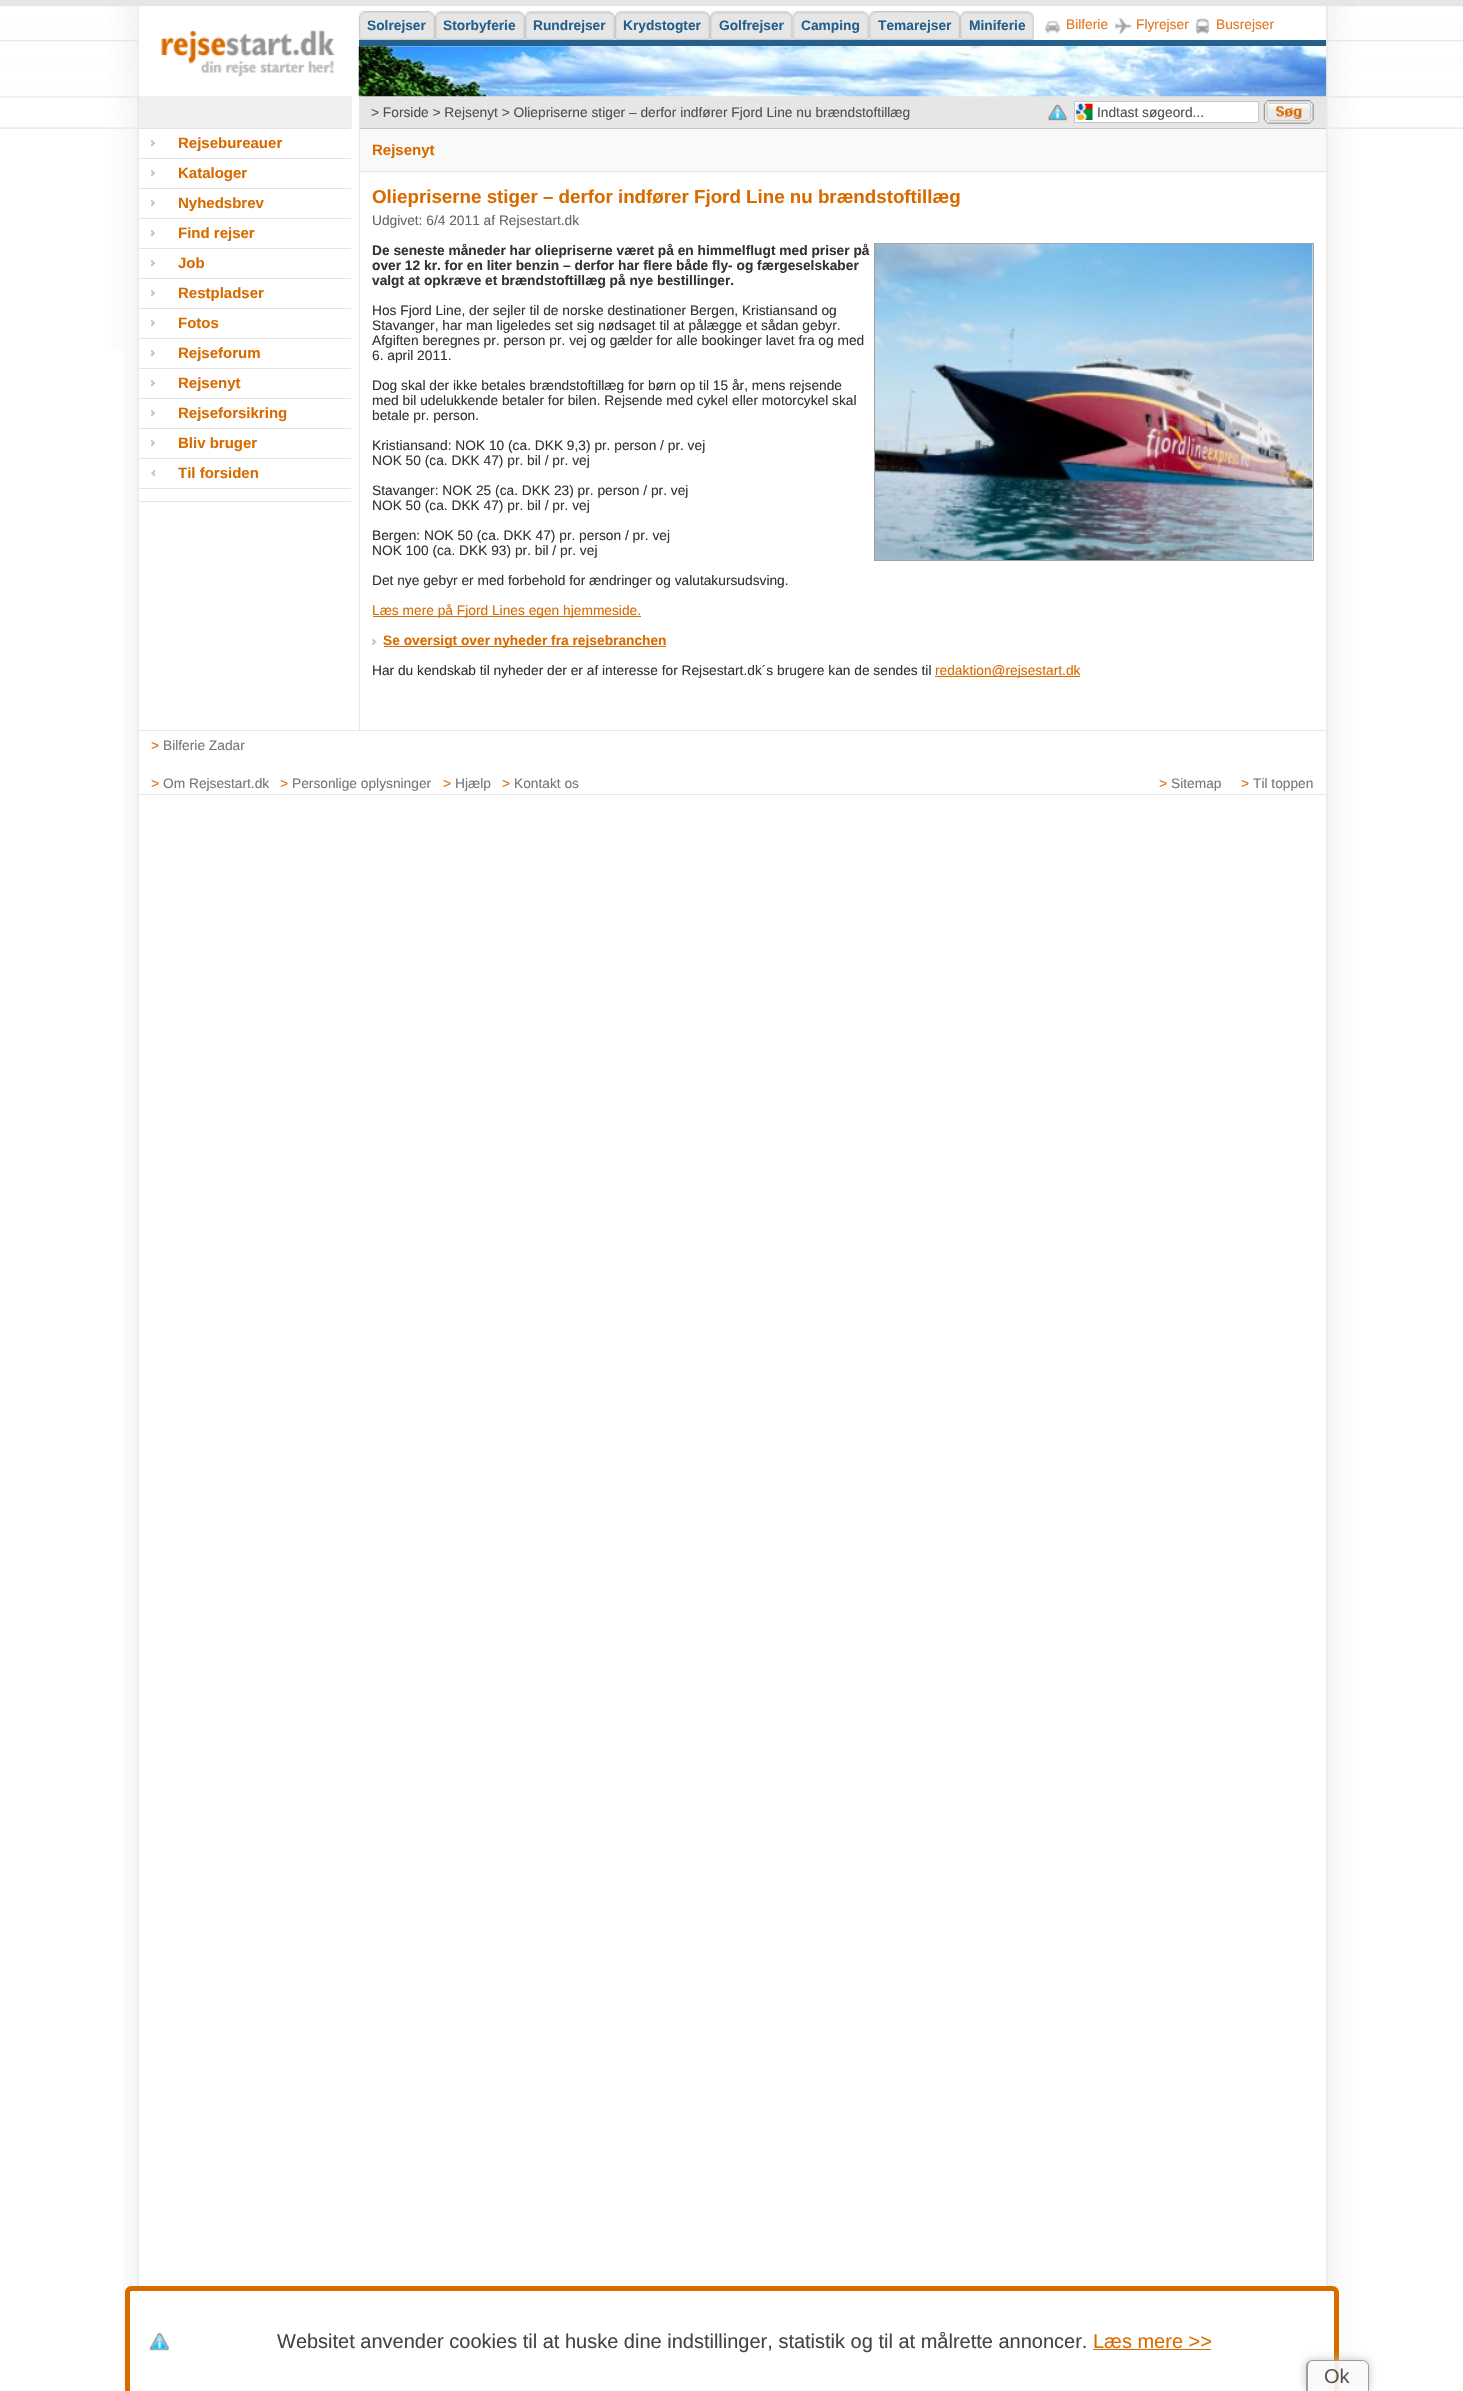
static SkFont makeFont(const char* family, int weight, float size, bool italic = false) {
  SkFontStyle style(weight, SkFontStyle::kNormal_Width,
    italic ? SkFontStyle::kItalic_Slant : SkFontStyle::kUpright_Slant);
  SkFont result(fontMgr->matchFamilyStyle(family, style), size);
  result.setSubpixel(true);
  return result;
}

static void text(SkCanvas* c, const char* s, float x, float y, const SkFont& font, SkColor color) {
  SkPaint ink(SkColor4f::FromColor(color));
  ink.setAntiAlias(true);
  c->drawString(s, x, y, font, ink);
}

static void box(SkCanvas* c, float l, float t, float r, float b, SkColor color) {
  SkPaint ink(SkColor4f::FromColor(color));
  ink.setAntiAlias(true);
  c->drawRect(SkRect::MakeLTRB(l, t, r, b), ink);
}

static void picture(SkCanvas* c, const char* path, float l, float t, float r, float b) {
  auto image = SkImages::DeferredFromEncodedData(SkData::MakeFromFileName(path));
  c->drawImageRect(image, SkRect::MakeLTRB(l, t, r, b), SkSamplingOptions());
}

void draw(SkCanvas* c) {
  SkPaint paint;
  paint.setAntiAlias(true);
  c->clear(0xffffffff);
  picture(c, "img_01.png", 0, 0, 1463, 129);
  picture(c, "img_02.png", 123, 350, 139, 2391);
  picture(c, "img_03.png", 106, 0, 139, 350);
  picture(c, "img_04.png", 106, 0, 139, 129);
  box(c, 139, 6, 1326, 129, 0xffffffff);
  picture(c, "img_06.png", 358, 11, 435, 40);
  picture(c, "img_07.png", 358, 11, 430, 40);
  picture(c, "img_05.png", 138, 6, 359, 96);
  box(c, 359, 40, 1326, 46, 0xff255f8b);
  box(c, 364, 11, 430, 12, 0xbfc8c8c8);
  SkFont face1 = makeFont("Liberation Sans", 700, 13.75f);
  text(c, "Solrejser", 367, 30, face1, 0xff255f8b);
  picture(c, "img_08.png", 435, 11, 525, 40);
  picture(c, "img_09.png", 435, 11, 520, 40);
  box(c, 440, 11, 520, 14, 0xffd7d7d7);
  text(c, "Storbyferie", 443, 30, face1, 0xff255f8b);
  picture(c, "img_08.png", 525, 11, 615, 40);
  picture(c, "img_09.png", 525, 11, 610, 40);
  box(c, 530, 11, 610, 14, 0xffd7d7d7);
  text(c, "Rundrejser", 533, 30, face1, 0xff255f8b);
  picture(c, "img_10.png", 615, 11, 710, 40);
  picture(c, "img_11.png", 615, 11, 705, 40);
  box(c, 620, 11, 705, 14, 0xffd7d7d7);
  text(c, "Krydstogter", 623, 30, face1, 0xff255f8b);
  picture(c, "img_12.png", 710, 11, 793, 40);
  picture(c, "img_13.png", 710, 11, 788, 40);
  box(c, 715, 11, 788, 14, 0xffd7d7d7);
  text(c, "Golfrejser", 719, 30, face1, 0xff255f8b);
  picture(c, "img_14.png", 792, 11, 869, 40);
  picture(c, "img_15.png", 792, 11, 864, 40);
  box(c, 797, 11, 864, 14, 0xffd7d7d7);
  text(c, "Camping", 801, 30, face1, 0xff255f8b);
  picture(c, "img_16.png", 868, 11, 960, 40);
  picture(c, "img_17.png", 868, 11, 955, 40);
  box(c, 874, 11, 955, 12, 0xbfc8c8c8);
  text(c, "Temarejser", 878, 30, face1, 0xff255f8b);
  picture(c, "img_18.png", 960, 11, 1034, 40);
  picture(c, "img_19.png", 960, 11, 1029, 40);
  box(c, 965, 11, 1029, 14, 0xffd7d7d7);
  text(c, "Miniferie", 969, 30, face1, 0xff255f8b);
  picture(c, "img_20.png", 1045, 21, 1061, 34);
  SkFont face2 = makeFont("Liberation Sans", 400, 13.75f);
  text(c, "Bilferie", 1066, 29, face2, 0xffe0761e);
  picture(c, "img_21.png", 1114, 17, 1132, 34);
  text(c, "Flyrejser", 1136, 29, face2, 0xffe0761e);
  picture(c, "img_22.png", 1195, 18, 1210, 34);
  text(c, "Busrejser", 1216, 29, face2, 0xffe0761e);
  box(c, 359, 96, 1326, 128, 0xffe6e6e6);
  picture(c, "img_31.png", 1326, 0, 1359, 2391);
  picture(c, "img_23.png", 358, 46, 1327, 97);
  box(c, 139, 96, 352, 128, 0xfff0f0f0);
  text(c, "> Forside > Rejsenyt > Oliepriserne stiger – derfor indfører Fjord Line nu brændstoftillæg", 371, 117, face2, 0xff505050);
  picture(c, "img_24.png", 1047, 104, 1068, 121);
  box(c, 1075, 102, 1258, 122, 0xffffffff);
  picture(c, "img_25.png", 1076, 103, 1093, 120);
  paint.setStyle(SkPaint::kStroke_Style);
  paint.setStrokeWidth(1);
  paint.setColor(0xffc7c7c7);
  c->drawRect(SkRect::MakeLTRB(1074.5f, 101.5f, 1258.5f, 122.5f), paint);
  text(c, "Indtast søgeord...", 1097, 117, face2, 0xff505050);
  picture(c, "img_26.png", 1263, 100, 1314, 124);
  box(c, 139, 128, 351, 129, 0xffe4e4e4);
  picture(c, "img_27.png", 151, 140, 155, 147);
  SkFont face3 = makeFont("Liberation Sans", 700, 15);
  text(c, "Rejsebureauer", 178, 148, face3, 0xffd86b00);
  box(c, 139, 158, 351, 159, 0xffe4e4e4);
  picture(c, "img_27.png", 151, 170, 155, 177);
  text(c, "Kataloger", 178, 178, face3, 0xffd86b00);
  box(c, 139, 188, 351, 189, 0xffe4e4e4);
  picture(c, "img_27.png", 151, 200, 155, 207);
  text(c, "Nyhedsbrev", 178, 208, face3, 0xffd86b00);
  box(c, 139, 218, 351, 219, 0xffe4e4e4);
  picture(c, "img_27.png", 151, 230, 155, 237);
  text(c, "Find rejser", 178, 238, face3, 0xffd86b00);
  box(c, 139, 248, 351, 249, 0xffe4e4e4);
  picture(c, "img_27.png", 151, 260, 155, 267);
  text(c, "Job", 178, 268, face3, 0xffd86b00);
  box(c, 139, 278, 351, 279, 0xffe4e4e4);
  picture(c, "img_27.png", 151, 290, 155, 297);
  text(c, "Restpladser", 178, 298, face3, 0xffd86b00);
  box(c, 139, 308, 351, 309, 0xffe4e4e4);
  picture(c, "img_27.png", 151, 320, 155, 327);
  text(c, "Fotos", 178, 328, face3, 0xffd86b00);
  box(c, 139, 338, 351, 339, 0xffe4e4e4);
  picture(c, "img_27.png", 151, 350, 155, 357);
  text(c, "Rejseforum", 178, 358, face3, 0xffd86b00);
  box(c, 139, 368, 351, 369, 0xffe4e4e4);
  picture(c, "img_27.png", 151, 380, 155, 387);
  text(c, "Rejsenyt", 178, 388, face3, 0xffd86b00);
  box(c, 139, 398, 351, 399, 0xffe4e4e4);
  picture(c, "img_27.png", 151, 410, 155, 417);
  text(c, "Rejseforsikring", 178, 418, face3, 0xffd86b00);
  box(c, 139, 428, 351, 429, 0xffe4e4e4);
  picture(c, "img_27.png", 151, 440, 155, 447);
  text(c, "Bliv bruger", 178, 448, face3, 0xffd86b00);
  box(c, 139, 458, 351, 459, 0xffe4e4e4);
  picture(c, "img_28.png", 151, 470, 155, 477);
  text(c, "Til forsiden", 178, 478, face3, 0xffd86b00);
  box(c, 139, 488, 351, 489, 0xffe4e4e4);
  box(c, 139, 501, 351, 502, 0xffe4e4e4);
  box(c, 359, 128, 1326, 129, 0xffc7c7c7);
  box(c, 359, 128, 360, 730, 0xffe6e6e6);
  box(c, 360, 129, 1326, 173, 0xfff9f9f9);
  box(c, 360, 171, 1326, 172, 0xffe6e6e6);
  text(c, "Rejsenyt", 372, 155, face3, 0xffd86b00);
  SkFont face4 = makeFont("Liberation Sans", 700, 18.75f);
  text(c, "Oliepriserne stiger – derfor indfører Fjord Line nu brændstoftillæg", 372, 203, face4, 0xffd86b00);
  text(c, "Udgivet: 6/4 2011 af Rejsestart.dk", 372, 225, face2, 0xff666666);
  text(c, "De seneste måneder har oliepriserne været på en himmelflugt med priser på", 372, 255, face1, 0xff333333);
  paint.setColor(0xffa1a1a1);
  c->drawRect(SkRect::MakeLTRB(874.5f, 243.5f, 1313.5f, 560.5f), paint);
  picture(c, "img_29.png", 875, 243, 1313, 560);
  text(c, "over 12 kr. for en liter benzin – derfor har flere både fly- og færgeselskaber", 372, 270, face1, 0xff333333);
  text(c, "valgt at opkræve et brændstoftillæg på nye bestillinger.", 372, 285, face1, 0xff333333);
  text(c, "Hos Fjord Line, der sejler til de norske destinationer Bergen, Kristiansand og", 372, 315, face2, 0xff333333);
  text(c, "Stavanger, har man ligeledes set sig nødsaget til at pålægge et sådan gebyr.", 372, 330, face2, 0xff333333);
  text(c, "Afgiften beregnes pr. person pr. vej og gælder for alle bookinger lavet fra og med", 372, 345, face2, 0xff333333);
  text(c, "6. april 2011.", 372, 360, face2, 0xff333333);
  text(c, "Dog skal der ikke betales brændstoftillæg for børn op til 15 år, mens rejsende", 372, 390, face2, 0xff333333);
  text(c, "med bil udelukkende betaler for bilen. Rejsende med cykel eller motorcykel skal", 372, 405, face2, 0xff333333);
  text(c, "betale pr. person.", 372, 420, face2, 0xff333333);
  text(c, "Kristiansand: NOK 10 (ca. DKK 9,3) pr. person / pr. vej", 372, 450, face2, 0xff333333);
  text(c, "NOK 50 (ca. DKK 47) pr. bil / pr. vej", 372, 465, face2, 0xff333333);
  text(c, "Stavanger: NOK 25 (ca. DKK 23) pr. person / pr. vej", 372, 495, face2, 0xff333333);
  text(c, "NOK 50 (ca. DKK 47) pr. bil / pr. vej", 372, 510, face2, 0xff333333);
  text(c, "Bergen: NOK 50 (ca. DKK 47) pr. person / pr. vej", 372, 540, face2, 0xff333333);
  text(c, "NOK 100 (ca. DKK 93) pr. bil / pr. vej", 372, 555, face2, 0xff333333);
  text(c, "Det nye gebyr er med forbehold for ændringer og valutakursudsving.", 372, 585, face2, 0xff333333);
  box(c, 373, 616, 641, 617, 0xffd86b00);
  text(c, "Læs mere på Fjord Lines egen hjemmeside.", 372, 615, face2, 0xffd86b00);
  picture(c, "img_30.png", 372, 638, 377, 645);
  box(c, 384, 646, 666, 647, 0xffd86b00);
  text(c, "Se oversigt over nyheder fra rejsebranchen", 383, 645, face1, 0xffd86b00);
  text(c, "Har du kendskab til nyheder der er af interesse for Rejsestart.dk´s brugere kan de sendes til", 372, 675, face2, 0xff333333);
  box(c, 935, 676, 1080, 677, 0xffd86b00);
  text(c, "redaktion@rejsestart.dk", 935, 675, face2, 0xffd86b00);
  box(c, 139, 730, 1326, 731, 0xffe6e6e6);
  box(c, 139, 794, 1326, 795, 0xffe6e6e6);
  text(c, ">", 151, 750, face2, 0xffd86b00);
  text(c, "Bilferie Zadar", 163, 750, face2, 0xff767676);
  text(c, ">", 151, 788, face2, 0xffd86b00);
  text(c, "Om Rejsestart.dk", 163, 788, face2, 0xff767676);
  text(c, ">", 280, 788, face2, 0xffd86b00);
  text(c, "Personlige oplysninger", 292, 788, face2, 0xff767676);
  text(c, ">", 443, 788, face2, 0xffd86b00);
  text(c, "Hjælp", 455, 788, face2, 0xff767676);
  text(c, ">", 502, 788, face2, 0xffd86b00);
  text(c, "Kontakt os", 514, 788, face2, 0xff767676);
  text(c, ">", 1159, 788, face2, 0xffd86b00);
  text(c, "Sitemap", 1171, 788, face2, 0xff767676);
  text(c, ">", 1241, 788, face2, 0xffd86b00);
  text(c, "Til toppen", 1253, 788, face2, 0xff767676);
  picture(c, "img_32.png", 1326, 0, 1359, 129);
  paint.setStyle(SkPaint::kFill_Style);
  paint.setColor(0xffffffff);
  c->drawPath(SkPathBuilder().moveTo(131, 2286).lineTo(1333, 2286).cubicTo(1336.5f, 2286, 1339, 2288.5f, 1339, 2292).lineTo(1339, 2391).lineTo(125, 2391).lineTo(125, 2292).cubicTo(125, 2288.5f, 127.5f, 2286, 131, 2286).close().detach(), paint);
  paint.setColor(0xffd86b00);
  c->drawPath(SkPathBuilder(SkPathFillType::kEvenOdd).moveTo(131, 2286).lineTo(1332, 2286).cubicTo(1336, 2286, 1339, 2289, 1339, 2292).lineTo(1339, 2391).lineTo(125, 2391).lineTo(125, 2292).cubicTo(125, 2289, 128, 2286, 131, 2286).close().moveTo(131, 2291).lineTo(1332, 2291).cubicTo(1333, 2291, 1334, 2292, 1334, 2292).lineTo(1334, 2391).lineTo(130, 2391).lineTo(130, 2292).cubicTo(130, 2292, 131, 2291, 131, 2291).close().detach(), paint);
  picture(c, "img_33.png", 149, 2332, 169, 2351);
  SkFont face5 = makeFont("Liberation Sans", 400, 20);
  text(c, "Websitet anvender cookies til at huske dine indstillinger, statistik og til at målrette annoncer.", 277, 2348, face5, 0xff444444);
  text(c, "Læs mere >>", 1093, 2348, face5, 0xffd86b00);
  box(c, 1093, 2349, 1211, 2350, 0xffd86b00);
  c->save();
  c->clipPath(SkPathBuilder(SkPathFillType::kEvenOdd).moveTo(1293, 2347).lineTo(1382, 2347).lineTo(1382, 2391).lineTo(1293, 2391).close().moveTo(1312, 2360).lineTo(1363, 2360).cubicTo(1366.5f, 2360, 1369, 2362.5f, 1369, 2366).lineTo(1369, 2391).lineTo(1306, 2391).lineTo(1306, 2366).cubicTo(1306, 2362.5f, 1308.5f, 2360, 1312, 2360).close().detach(), true);
  paint.setColor(0xe6bbbbbb);
  paint.setMaskFilter(SkMaskFilter::MakeBlur(kNormal_SkBlurStyle, 4));
  c->drawRoundRect(SkRect::MakeLTRB(1306, 2360, 1369, 2391), 6, 6, paint);
  paint.setMaskFilter(nullptr);
  c->restore();
  paint.setColor(0xe6fafafa);
  c->drawPath(SkPathBuilder().moveTo(1312, 2360).lineTo(1363, 2360).cubicTo(1366.5f, 2360, 1369, 2362.5f, 1369, 2366).lineTo(1369, 2391).lineTo(1306, 2391).lineTo(1306, 2366).cubicTo(1306, 2362.5f, 1308.5f, 2360, 1312, 2360).close().detach(), paint);
  paint.setColor(0xe693948c);
  c->drawPath(SkPathBuilder(SkPathFillType::kEvenOdd).moveTo(1312, 2360).lineTo(1362, 2360).cubicTo(1366, 2360, 1369, 2363, 1369, 2366).lineTo(1369, 2391).lineTo(1306, 2391).lineTo(1306, 2366).cubicTo(1306, 2363, 1309, 2360, 1312, 2360).close().moveTo(1312, 2361).lineTo(1362, 2361).cubicTo(1365, 2361, 1368, 2363, 1368, 2366).lineTo(1368, 2391).lineTo(1308, 2391).lineTo(1308, 2366).cubicTo(1308, 2363, 1310, 2361, 1312, 2361).close().detach(), paint);
  text(c, "Ok", 1324, 2383, face5, 0xff565656);
}
